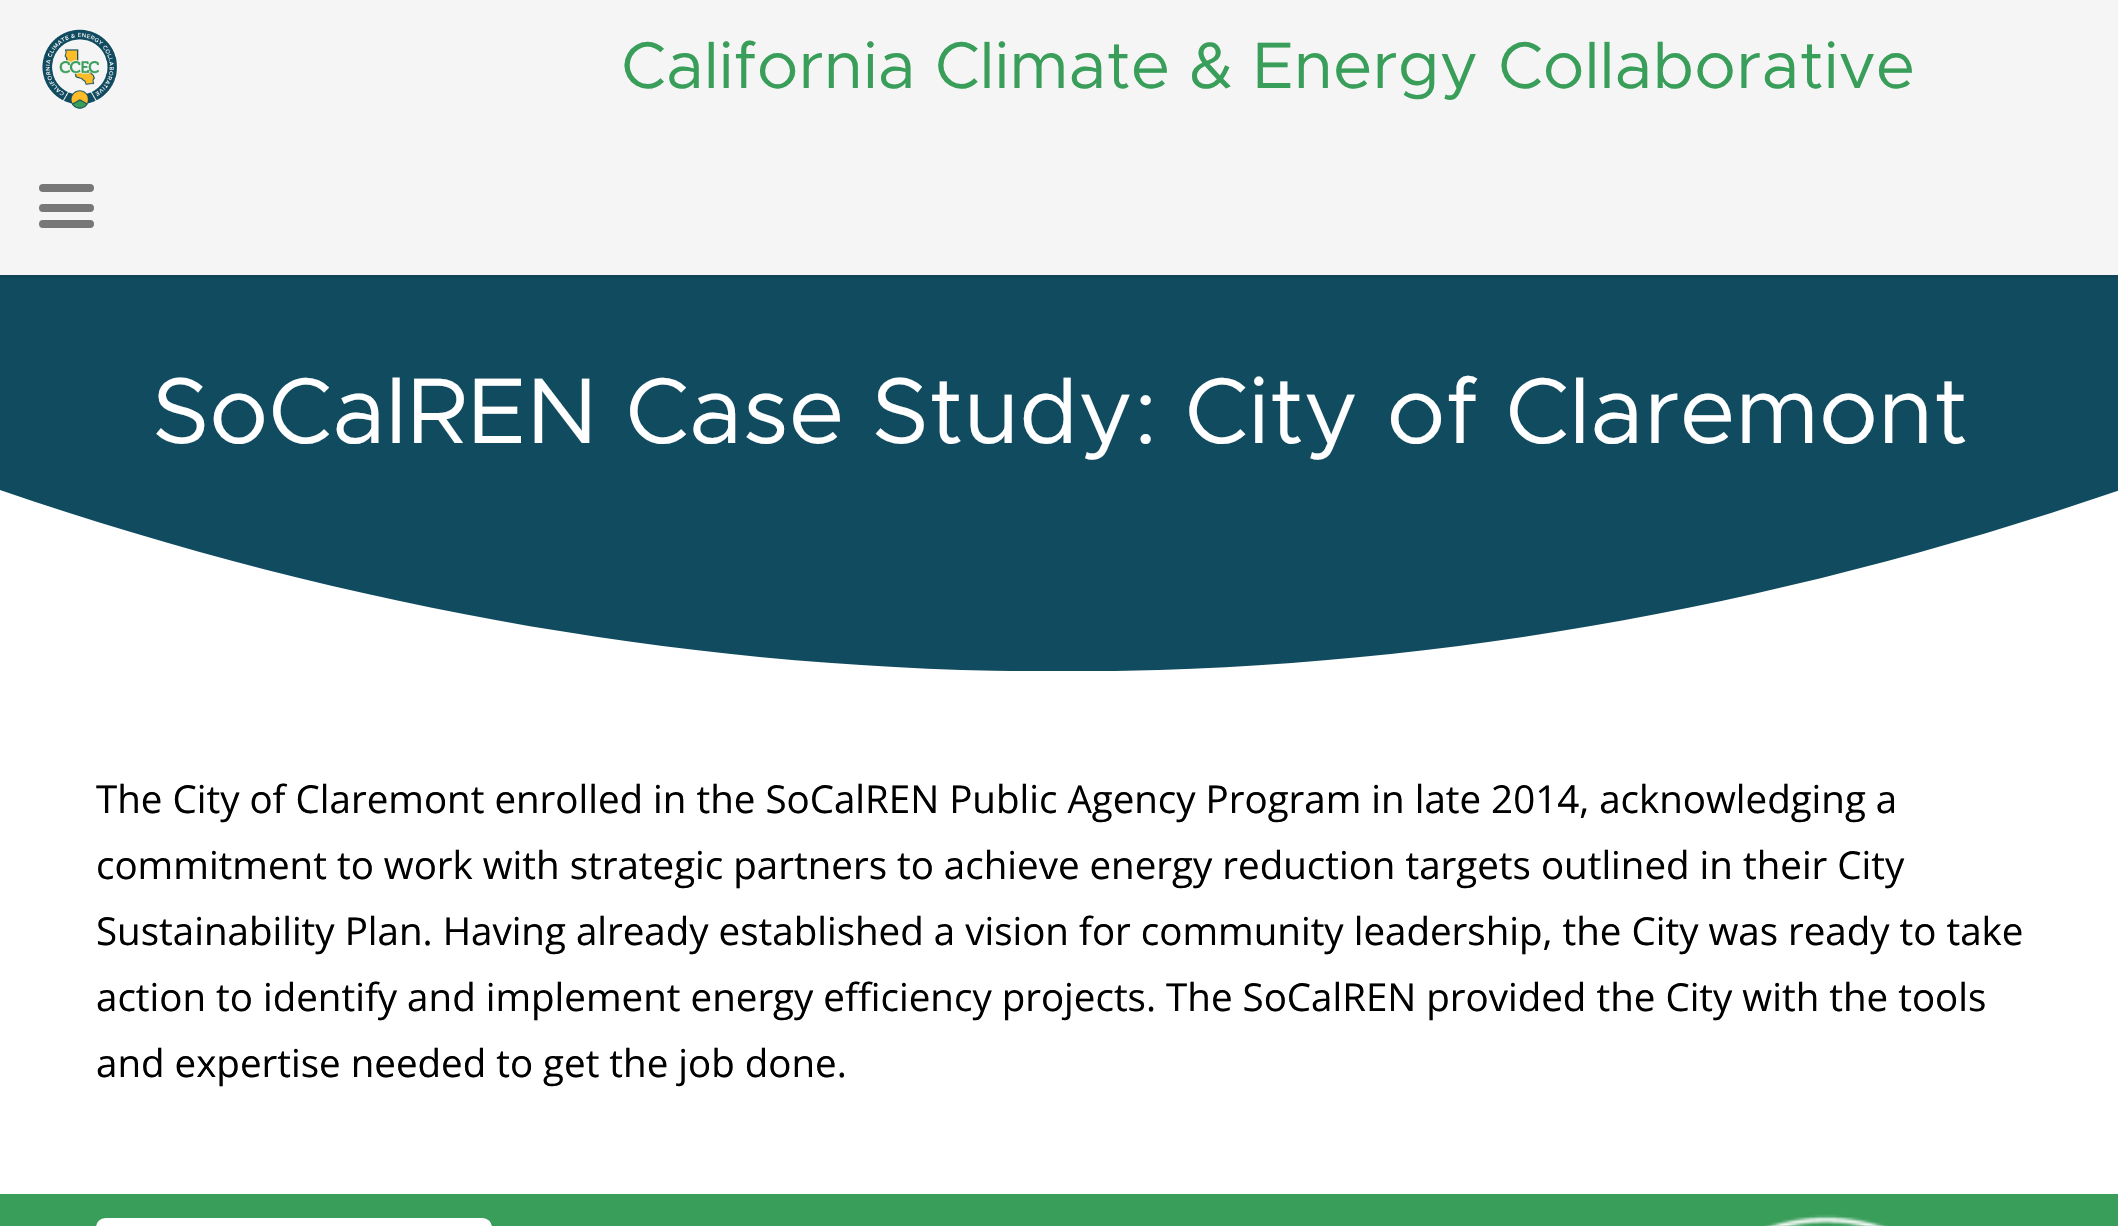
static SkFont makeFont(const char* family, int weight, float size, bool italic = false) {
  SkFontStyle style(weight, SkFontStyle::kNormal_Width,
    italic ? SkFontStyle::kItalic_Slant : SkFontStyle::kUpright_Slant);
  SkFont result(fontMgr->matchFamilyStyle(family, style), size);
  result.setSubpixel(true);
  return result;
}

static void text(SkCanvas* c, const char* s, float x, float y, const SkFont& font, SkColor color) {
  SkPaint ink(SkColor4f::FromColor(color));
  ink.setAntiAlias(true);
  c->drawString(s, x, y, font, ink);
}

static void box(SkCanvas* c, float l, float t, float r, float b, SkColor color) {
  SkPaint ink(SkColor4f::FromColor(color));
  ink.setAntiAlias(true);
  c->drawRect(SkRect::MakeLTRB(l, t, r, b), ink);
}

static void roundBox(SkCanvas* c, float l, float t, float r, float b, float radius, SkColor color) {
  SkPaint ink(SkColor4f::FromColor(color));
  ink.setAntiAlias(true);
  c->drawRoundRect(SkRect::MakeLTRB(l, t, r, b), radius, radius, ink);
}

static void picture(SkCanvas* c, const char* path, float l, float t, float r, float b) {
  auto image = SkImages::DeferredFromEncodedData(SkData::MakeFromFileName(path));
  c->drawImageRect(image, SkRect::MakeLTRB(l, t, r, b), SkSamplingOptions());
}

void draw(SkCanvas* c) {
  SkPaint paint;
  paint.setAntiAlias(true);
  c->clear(0xffffffff);
  box(c, 0, 0, 2118, 275, 0xfff5f5f5);
  picture(c, "img_01.png", 42, 29, 118, 109);
  SkFont face1 = makeFont("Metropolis", 400, 66);
  text(c, "California Climate & Energy Collaborative", 621, 88, face1, 0xff399e5a);
  box(c, 0, 275, 2118, 278, 0xff104557);
  roundBox(c, 39, 204, 94, 212, 4, 0xff777777);
  roundBox(c, 39, 184, 94, 192, 4, 0xff777777);
  roundBox(c, 39, 220, 94, 228, 4, 0xff777777);
  box(c, 0, 278, 2118, 671, 0xff114b5f);
  SkFont face2 = makeFont("Metropolis", 400, 93.5f);
  text(c, "SoCalREN Case Study: City of Claremont", 152, 443, face2, 0xffffffff);
  paint.setColor(0xffffffff);
  c->drawPath(SkPathBuilder().moveTo(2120, 673).lineTo(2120, 490).cubicTo(1414, 732, 707, 732, 0, 490).lineTo(0, 673).close().detach(), paint);
  SkFont face3 = makeFont("Open Sans", 400, 38.5f);
  text(c, "The City of Claremont enrolled in the SoCalREN Public Agency Program in late 2014, acknowledging a", 96, 813, face3, 0xff000000);
  text(c, "commitment to work with strategic partners to achieve energy reduction targets outlined in their City", 96, 879, face3, 0xff000000);
  text(c, "Sustainability Plan. Having already established a vision for community leadership, the City was ready to take", 96, 945, face3, 0xff000000);
  text(c, "action to identify and implement energy efficiency projects. The SoCalREN provided the City with the tools", 96, 1011, face3, 0xff000000);
  text(c, "and expertise needed to get the job done.", 96, 1077, face3, 0xff000000);
  box(c, 0, 1194, 2118, 1226, 0xff399e5a);
  roundBox(c, 96, 1218, 492, 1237, 11, 0xffffffff);
  picture(c, "img_02.png", 1763, 1214, 1889, 1226);
}
